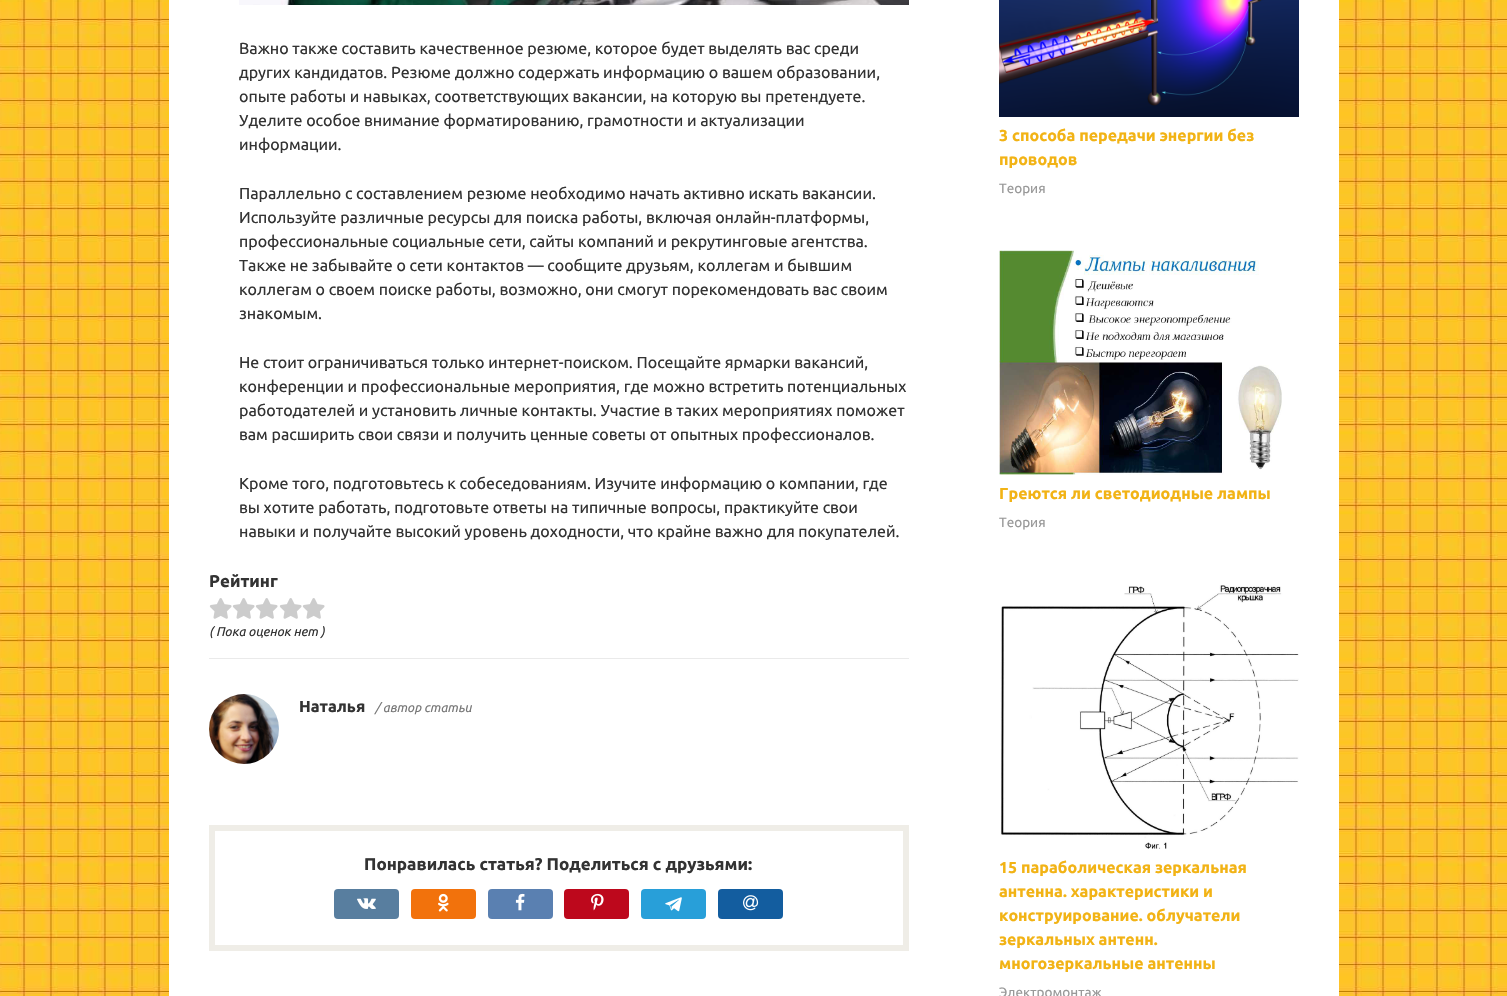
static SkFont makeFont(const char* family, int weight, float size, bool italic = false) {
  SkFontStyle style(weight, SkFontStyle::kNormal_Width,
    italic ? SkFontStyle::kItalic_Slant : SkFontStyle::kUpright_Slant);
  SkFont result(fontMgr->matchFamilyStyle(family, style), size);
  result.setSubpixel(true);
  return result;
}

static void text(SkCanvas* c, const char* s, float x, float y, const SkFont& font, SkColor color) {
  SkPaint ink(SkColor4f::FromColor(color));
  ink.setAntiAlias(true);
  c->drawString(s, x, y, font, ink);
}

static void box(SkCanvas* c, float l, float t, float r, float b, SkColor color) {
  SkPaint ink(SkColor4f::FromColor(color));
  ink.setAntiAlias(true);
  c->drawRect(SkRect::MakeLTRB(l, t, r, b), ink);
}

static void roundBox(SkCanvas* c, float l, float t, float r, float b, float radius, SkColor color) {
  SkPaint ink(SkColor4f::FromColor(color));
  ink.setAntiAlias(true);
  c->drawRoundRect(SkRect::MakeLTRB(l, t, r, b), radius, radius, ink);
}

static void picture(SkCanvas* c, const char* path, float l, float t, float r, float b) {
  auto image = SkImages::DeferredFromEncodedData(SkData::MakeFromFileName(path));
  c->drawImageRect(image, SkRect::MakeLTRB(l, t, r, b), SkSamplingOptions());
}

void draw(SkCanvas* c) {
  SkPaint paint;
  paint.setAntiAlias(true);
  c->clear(0xffffffff);
  picture(c, "img_01.png", 0, 0, 1507, 996);
  box(c, 169, 0, 1339, 996, 0xffffffff);
  picture(c, "img_02.png", 239, 0, 909, 5);
  SkFont face1 = makeFont("Ubuntu", 400, 16);
  text(c, "Важно также составить качественное резюме, которое будет выделять вас среди", 239, 54, face1, 0xff333333);
  text(c, "других кандидатов. Резюме должно содержать информацию о вашем образовании,", 239, 78, face1, 0xff333333);
  text(c, "опыте работы и навыках, соответствующих вакансии, на которую вы претендуете.", 239, 102, face1, 0xff333333);
  text(c, "Уделите особое внимание форматированию, грамотности и актуализации", 239, 126, face1, 0xff333333);
  text(c, "информации.", 239, 150, face1, 0xff333333);
  text(c, "Параллельно с составлением резюме необходимо начать активно искать вакансии.", 239, 199, face1, 0xff333333);
  text(c, "Используйте различные ресурсы для поиска работы, включая онлайн-платформы,", 239, 223, face1, 0xff333333);
  text(c, "профессиональные социальные сети, сайты компаний и рекрутинговые агентства.", 239, 247, face1, 0xff333333);
  text(c, "Также не забывайте о сети контактов — сообщите друзьям, коллегам и бывшим", 239, 271, face1, 0xff333333);
  text(c, "коллегам о своем поиске работы, возможно, они смогут порекомендовать вас своим", 239, 295, face1, 0xff333333);
  text(c, "знакомым.", 239, 319, face1, 0xff333333);
  text(c, "Не стоит ограничиваться только интернет-поиском. Посещайте ярмарки вакансий,", 239, 368, face1, 0xff333333);
  text(c, "конференции и профессиональные мероприятия, где можно встретить потенциальных", 239, 392, face1, 0xff333333);
  text(c, "работодателей и установить личные контакты. Участие в таких мероприятиях поможет", 239, 416, face1, 0xff333333);
  text(c, "вам расширить свои связи и получить ценные советы от опытных профессионалов.", 239, 440, face1, 0xff333333);
  text(c, "Кроме того, подготовьтесь к собеседованиям. Изучите информацию о компании, где", 239, 489, face1, 0xff333333);
  text(c, "вы хотите работать, подготовьте ответы на типичные вопросы, практикуйте свои", 239, 513, face1, 0xff333333);
  text(c, "навыки и получайте высокий уровень доходности, что крайне важно для покупателей.", 239, 537, face1, 0xff333333);
  SkFont face2 = makeFont("Ubuntu", 700, 17);
  text(c, "Рейтинг", 209, 587, face2, 0xff333333);
  picture(c, "img_03.png", 209, 598, 232, 619);
  picture(c, "img_03.png", 232, 598, 255, 619);
  picture(c, "img_03.png", 255, 598, 278, 619);
  picture(c, "img_03.png", 279, 598, 302, 619);
  picture(c, "img_03.png", 302, 598, 325, 619);
  SkFont face3 = makeFont("Ubuntu", 400, 12.75f, true);
  text(c, "( Пока оценок нет )", 209, 636, face3, 0xff333333);
  box(c, 209, 658, 909, 659, 0xffeaeaea);
  picture(c, "img_04.png", 209, 694, 279, 764);
  SkFont face4 = makeFont("Ubuntu", 700, 16);
  text(c, "Наталья", 299, 712, face4, 0xff333333);
  text(c, "/ автор статьи", 375, 712, face3, 0xff777777);
  paint.setStyle(SkPaint::kStroke_Style);
  paint.setStrokeWidth(6);
  paint.setColor(0xffefede7);
  c->drawRect(SkRect::MakeLTRB(212, 828, 906, 948), paint);
  text(c, "Понравилась статья? Поделиться с друзьями:", 364, 870, face2, 0xff333333);
  roundBox(c, 334, 889, 399, 919, 4, 0xff587e9f);
  picture(c, "img_05.png", 357, 898, 376, 909);
  roundBox(c, 411, 889, 476, 919, 4, 0xfff2720c);
  picture(c, "img_06.png", 438, 893, 449, 912);
  roundBox(c, 488, 889, 553, 919, 4, 0xff5a80b1);
  picture(c, "img_07.png", 515, 893, 525, 911);
  roundBox(c, 564, 889, 629, 919, 4, 0xffbd081c);
  picture(c, "img_08.png", 591, 893, 604, 911);
  roundBox(c, 641, 889, 706, 919, 4, 0xff289fd9);
  picture(c, "img_09.png", 665, 897, 682, 912);
  roundBox(c, 718, 889, 783, 919, 4, 0xff135d9f);
  picture(c, "img_10.png", 743, 895, 759, 911);
  picture(c, "img_11.png", 999, 0, 1299, 117);
  text(c, "3 способа передачи энергии без", 999, 141, face4, 0xfff2b315);
  text(c, "проводов", 999, 165, face4, 0xfff2b315);
  SkFont face5 = makeFont("Ubuntu", 400, 13.5f);
  text(c, "Теория", 999, 193, face5, 0xff999999);
  picture(c, "img_12.png", 999, 250, 1282, 475);
  text(c, "Греются ли светодиодные лампы", 999, 499, face4, 0xfff2b315);
  text(c, "Теория", 999, 527, face5, 0xff999999);
  picture(c, "img_13.png", 1000, 585, 1299, 849);
  text(c, "15 параболическая зеркальная", 999, 873, face4, 0xfff2b315);
  text(c, "антенна. характеристики и", 999, 897, face4, 0xfff2b315);
  text(c, "конструирование. облучатели", 999, 921, face4, 0xfff2b315);
  text(c, "зеркальных антенн.", 999, 945, face4, 0xfff2b315);
  text(c, "многозеркальные антенны", 999, 969, face4, 0xfff2b315);
  text(c, "Электромонтаж", 999, 997, face5, 0xff999999);
}
